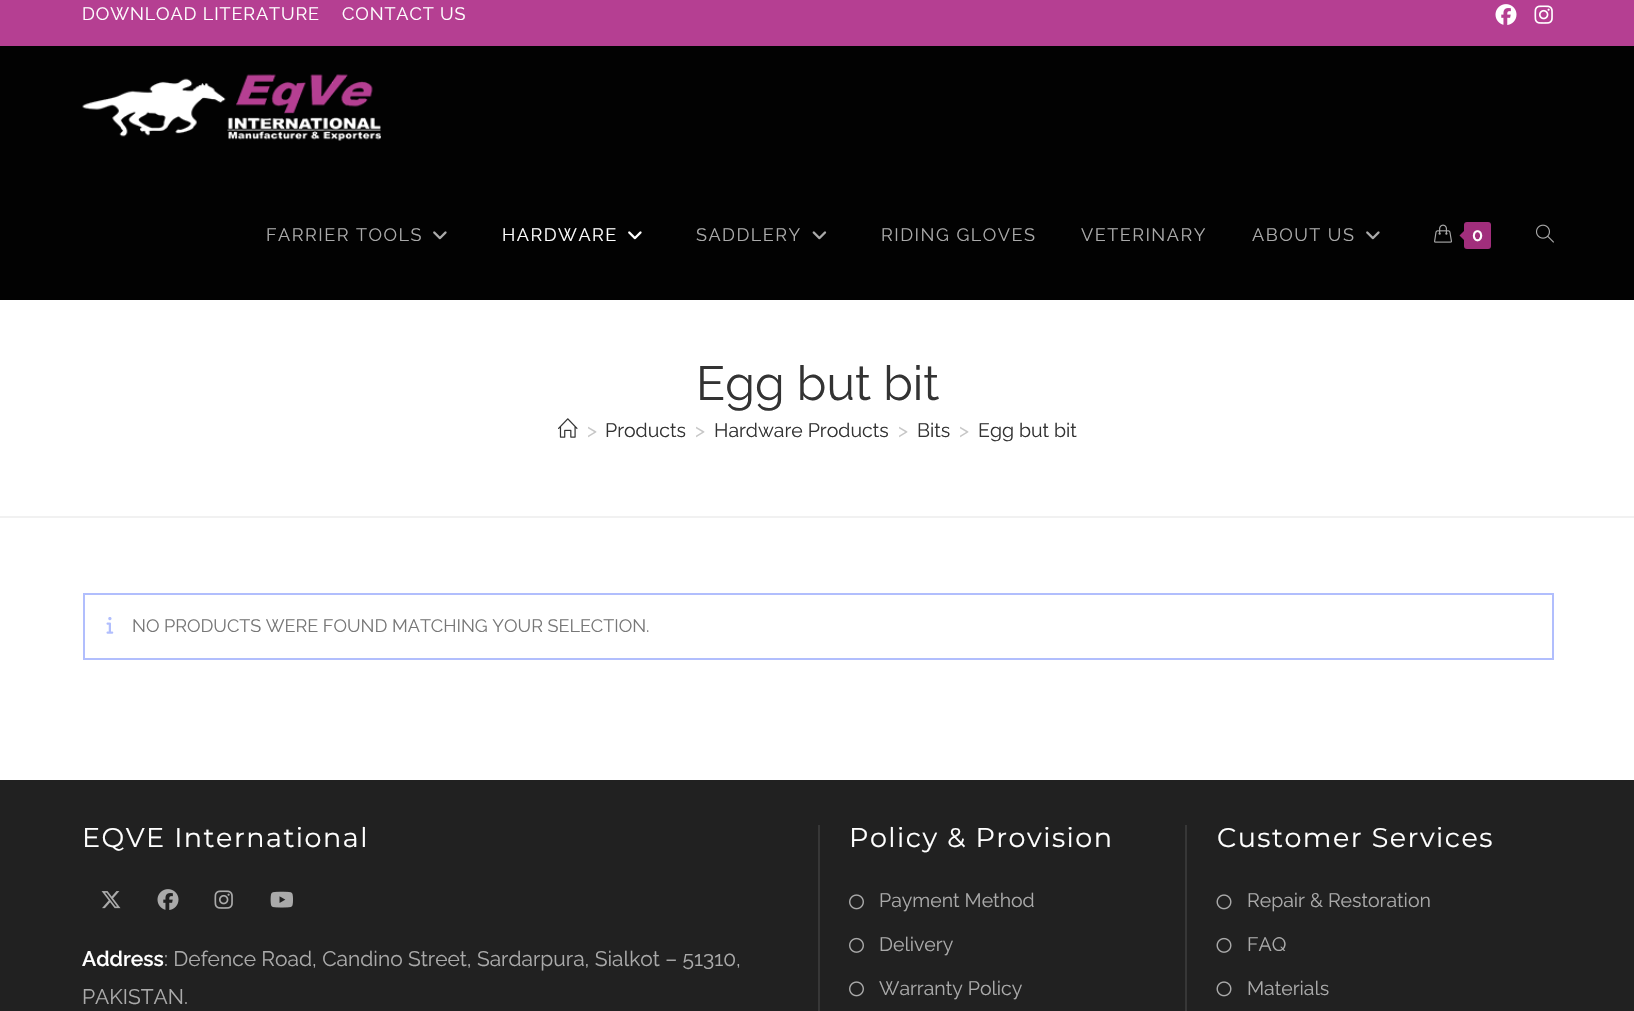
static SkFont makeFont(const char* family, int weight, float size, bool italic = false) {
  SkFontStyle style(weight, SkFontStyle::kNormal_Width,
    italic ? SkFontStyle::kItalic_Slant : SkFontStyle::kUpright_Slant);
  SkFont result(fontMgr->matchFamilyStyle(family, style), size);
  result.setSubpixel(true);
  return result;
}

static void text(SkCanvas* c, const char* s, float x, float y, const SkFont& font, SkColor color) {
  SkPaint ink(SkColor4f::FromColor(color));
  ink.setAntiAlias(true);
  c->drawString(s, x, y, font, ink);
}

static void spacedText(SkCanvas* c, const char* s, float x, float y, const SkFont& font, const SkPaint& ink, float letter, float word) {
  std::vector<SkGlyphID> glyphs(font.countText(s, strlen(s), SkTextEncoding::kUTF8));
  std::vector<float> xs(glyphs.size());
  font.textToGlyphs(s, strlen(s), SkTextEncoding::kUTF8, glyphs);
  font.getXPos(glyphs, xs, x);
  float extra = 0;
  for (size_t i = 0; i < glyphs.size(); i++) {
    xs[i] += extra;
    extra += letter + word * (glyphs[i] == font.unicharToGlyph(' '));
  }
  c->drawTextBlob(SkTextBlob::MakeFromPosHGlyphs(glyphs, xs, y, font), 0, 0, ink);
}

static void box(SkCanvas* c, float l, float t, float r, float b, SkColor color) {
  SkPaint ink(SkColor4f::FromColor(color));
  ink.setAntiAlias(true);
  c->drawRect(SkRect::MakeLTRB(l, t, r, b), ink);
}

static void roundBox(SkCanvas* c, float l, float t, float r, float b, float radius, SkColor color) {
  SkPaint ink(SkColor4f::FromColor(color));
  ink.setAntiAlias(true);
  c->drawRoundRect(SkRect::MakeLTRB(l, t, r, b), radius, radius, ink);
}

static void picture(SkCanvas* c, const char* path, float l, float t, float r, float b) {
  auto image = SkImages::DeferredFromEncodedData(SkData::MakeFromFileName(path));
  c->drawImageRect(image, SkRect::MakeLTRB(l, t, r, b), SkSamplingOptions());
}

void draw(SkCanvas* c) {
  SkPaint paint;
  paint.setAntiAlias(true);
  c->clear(0xffffffff);
  box(c, 0, 0, 1634, 46, 0xffb53f92);
  SkFont face1 = makeFont("Raleway", 400, 18);
  paint.setColor(0xffffffff);
  spacedText(c, "DOWNLOAD LITERATURE", 82, 20, face1, paint, 0.9f, 0);
  spacedText(c, "CONTACT US", 342, 20, face1, paint, 0.9f, 0);
  picture(c, "img_01.png", 1495, 4, 1517, 25);
  picture(c, "img_02.png", 1534, 5, 1553, 24);
  box(c, 0, 46, 1634, 300, 0xff020202);
  picture(c, "img_03.png", 82, 74, 381, 141);
  paint.setColor(0xffaaaaaa);
  spacedText(c, "FARRIER TOOLS", 266, 241, face1, paint, 1.5f, 0);
  picture(c, "img_04.png", 433, 231, 447, 240);
  paint.setColor(0xffffffff);
  spacedText(c, "HARDWARE", 502, 241, face1, paint, 1.5f, 0);
  picture(c, "img_05.png", 628, 231, 642, 240);
  paint.setColor(0xffaaaaaa);
  spacedText(c, "SADDLERY", 696, 241, face1, paint, 1.5f, 0);
  picture(c, "img_06.png", 812, 231, 827, 240);
  spacedText(c, "RIDING GLOVES", 881, 241, face1, paint, 1.5f, 0);
  spacedText(c, "VETERINARY", 1081, 241, face1, paint, 1.5f, 0);
  spacedText(c, "ABOUT US", 1252, 241, face1, paint, 1.5f, 0);
  picture(c, "img_04.png", 1366, 231, 1380, 240);
  picture(c, "img_07.png", 1434, 224, 1452, 243);
  roundBox(c, 1464, 222, 1491, 249, 3, 0xffa12e7c);
  paint.setColor(0xffa12e7c);
  c->drawPath(SkPathBuilder().moveTo(1467, 228).lineTo(1467, 243).lineTo(1459.5f, 235.5f).close().detach(), paint);
  SkFont face2 = makeFont("Raleway", 600, 18);
  text(c, "0", 1472, 241, face2, 0xffffffff);
  picture(c, "img_08.png", 1536, 224, 1554, 243);
  box(c, 0, 516, 1634, 518, 0xfff1f1f1);
  SkFont face3 = makeFont("Raleway", 400, 48);
  text(c, "Egg but bit", 696, 400, face3, 0xff333333);
  picture(c, "img_09.png", 558, 418, 578, 438);
  SkFont face4 = makeFont("Raleway", 400, 19.5f);
  text(c, ">", 587, 437, face4, 0xffc6c6c6);
  text(c, "Products", 605, 437, face4, 0xff333333);
  text(c, ">", 695, 437, face4, 0xffc6c6c6);
  text(c, "Hardware Products", 714, 437, face4, 0xff333333);
  text(c, ">", 898, 437, face4, 0xffc6c6c6);
  text(c, "Bits", 917, 437, face4, 0xff333333);
  text(c, ">", 959, 437, face4, 0xffc6c6c6);
  text(c, "Egg but bit", 978, 437, face4, 0xff333333);
  paint.setStyle(SkPaint::kStroke_Style);
  paint.setStrokeWidth(2);
  paint.setColor(0xffb1befd);
  c->drawRect(SkRect::MakeLTRB(84, 594, 1553, 659), paint);
  picture(c, "img_10.png", 106, 617, 114, 634);
  text(c, "NO PRODUCTS WERE FOUND MATCHING YOUR SELECTION.", 132, 632, face1, 0xff777777);
  box(c, 0, 780, 1634, 1011, 0xff212121);
  SkFont face5 = makeFont("Montserrat", 400, 27);
  paint.setStyle(SkPaint::kFill_Style);
  paint.setColor(0xffffffff);
  spacedText(c, "EQVE International", 82, 847, face5, paint, 1.5f, 0);
  picture(c, "img_11.png", 101, 891, 121, 909);
  picture(c, "img_12.png", 157, 889, 179, 910);
  picture(c, "img_13.png", 214, 890, 233, 909);
  picture(c, "img_14.png", 270, 891, 293, 908);
  SkFont face6 = makeFont("Raleway", 600, 21);
  text(c, "Address", 82, 966, face6, 0xffffffff);
  SkFont face7 = makeFont("Raleway", 400, 21);
  text(c, ": Defence Road, Candino Street, Sardarpura, Sialkot – 51310,", 164, 966, face7, 0xffaaaaaa);
  text(c, "PAKISTAN.", 82, 1004, face7, 0xffaaaaaa);
  box(c, 818, 825, 820, 1011, 0xff373737);
  spacedText(c, "Policy & Provision", 849, 847, face5, paint, 1.5f, 0);
  picture(c, "img_15.png", 849, 894, 864, 910);
  text(c, "Payment Method", 879, 907, face4, 0xffaaaaaa);
  picture(c, "img_16.png", 849, 937, 864, 953);
  text(c, "Delivery", 879, 951, face4, 0xffaaaaaa);
  picture(c, "img_15.png", 849, 981, 864, 997);
  text(c, "Warranty Policy", 879, 995, face4, 0xffaaaaaa);
  box(c, 1185, 825, 1187, 1011, 0xff373737);
  spacedText(c, "Customer Services", 1217, 847, face5, paint, 1.5f, 0);
  picture(c, "img_17.png", 1216, 894, 1232, 910);
  text(c, "Repair & Restoration", 1247, 907, face4, 0xffaaaaaa);
  picture(c, "img_18.png", 1216, 937, 1232, 953);
  text(c, "FAQ", 1247, 951, face4, 0xffaaaaaa);
  picture(c, "img_17.png", 1216, 981, 1232, 997);
  text(c, "Materials", 1247, 995, face4, 0xffaaaaaa);
}
